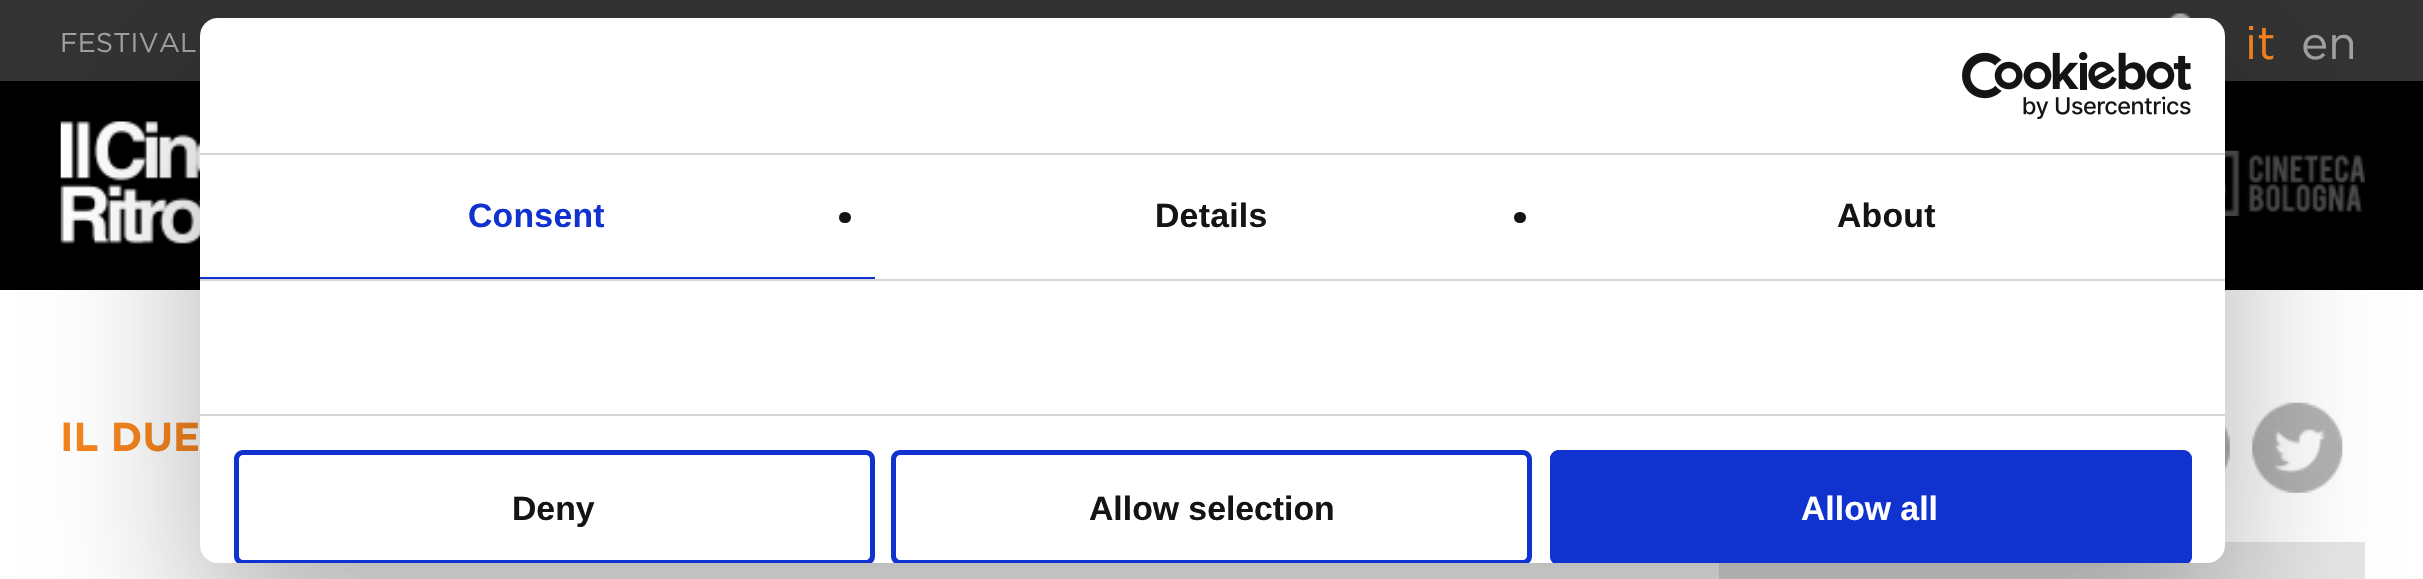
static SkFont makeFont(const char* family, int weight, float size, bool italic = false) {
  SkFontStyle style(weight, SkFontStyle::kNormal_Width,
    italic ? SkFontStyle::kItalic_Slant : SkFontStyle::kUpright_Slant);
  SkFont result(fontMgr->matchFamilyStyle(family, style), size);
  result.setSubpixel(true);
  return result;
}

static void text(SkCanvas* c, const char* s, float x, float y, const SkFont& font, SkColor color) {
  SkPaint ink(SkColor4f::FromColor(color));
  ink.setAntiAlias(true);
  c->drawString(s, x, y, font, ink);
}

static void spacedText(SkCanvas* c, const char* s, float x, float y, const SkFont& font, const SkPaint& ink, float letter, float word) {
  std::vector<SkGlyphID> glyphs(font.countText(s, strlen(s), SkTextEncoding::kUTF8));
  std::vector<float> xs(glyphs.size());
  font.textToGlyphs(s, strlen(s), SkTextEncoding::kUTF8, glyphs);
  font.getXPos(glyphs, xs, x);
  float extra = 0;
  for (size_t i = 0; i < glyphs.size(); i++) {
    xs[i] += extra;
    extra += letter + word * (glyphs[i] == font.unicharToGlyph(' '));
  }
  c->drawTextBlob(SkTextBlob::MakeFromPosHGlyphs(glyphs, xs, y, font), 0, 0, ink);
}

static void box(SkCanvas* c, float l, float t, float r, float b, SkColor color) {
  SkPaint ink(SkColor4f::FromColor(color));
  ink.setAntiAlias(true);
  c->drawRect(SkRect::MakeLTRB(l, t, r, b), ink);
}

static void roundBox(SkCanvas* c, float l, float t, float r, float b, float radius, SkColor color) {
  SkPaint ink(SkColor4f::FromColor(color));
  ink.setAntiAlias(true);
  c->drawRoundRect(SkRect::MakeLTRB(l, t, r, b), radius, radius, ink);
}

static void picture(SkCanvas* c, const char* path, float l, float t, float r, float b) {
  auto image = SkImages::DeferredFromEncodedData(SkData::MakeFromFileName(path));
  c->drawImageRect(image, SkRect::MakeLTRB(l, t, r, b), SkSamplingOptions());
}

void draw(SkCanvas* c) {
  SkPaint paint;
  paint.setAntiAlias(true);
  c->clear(0xffffffff);
  box(c, 0, 0, 2423, 81, 0xff333333);
  SkFont face1 = makeFont("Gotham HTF", 400, 27);
  text(c, "FESTIVAL", 60, 52, face1, 0xffa0a0a0);
  picture(c, "img_01.png", 2168, 13, 2192, 18);
  SkFont face2 = makeFont("Gotham HTF", 400, 46);
  text(c, "it", 2245, 59, face2, 0xfff6841e);
  text(c, "en", 2301, 59, face2, 0xffa0a0a0);
  box(c, 0, 81, 2423, 290, 0xff000000);
  picture(c, "img_02.png", 60, 121, 200, 244);
  picture(c, "img_03.png", 2225, 150, 2365, 216);
  SkFont face3 = makeFont("Gotham", 700, 40.5f);
  text(c, "IL DUE", 60, 451, face3, 0xfff6841e);
  picture(c, "img_04.png", 2225, 402, 2230, 493);
  picture(c, "img_05.png", 2252, 402, 2343, 493);
  box(c, 1719, 542, 2365, 579, 0xffe5e5e5);
  paint.setColor(0x4d000000);
  paint.setMaskFilter(SkMaskFilter::MakeBlur(kNormal_SkBlurStyle, 76.5f));
  c->drawRoundRect(SkRect::MakeLTRB(200, 90, 2225, 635), 18, 18, paint);
  paint.setMaskFilter(nullptr);
  roundBox(c, 200, 18, 2225, 563, 18, 0xffffffff);
  box(c, 200, 153, 2225, 155, 0xffd6d6d6);
  picture(c, "img_06.png", 1962, 52, 2192, 119);
  box(c, 200, 279, 2225, 281, 0xffd6d6d6);
  box(c, 200, 277, 875, 279, 0xff1032cf);
  SkFont face4 = makeFont("Liberation Sans", 700, 33.75f);
  paint.setColor(0xff1032cf);
  spacedText(c, "Consent", 468, 227, face4, paint, 0.25f, 0);
  roundBox(c, 839, 212, 851, 223, 5.5f, 0xff141414);
  paint.setColor(0xff141414);
  spacedText(c, "Details", 1155, 227, face4, paint, 0.25f, 0);
  roundBox(c, 1514, 212, 1526, 223, 5.5f, 0xff141414);
  spacedText(c, "About", 1837, 227, face4, paint, 0.25f, 0);
  box(c, 200, 414, 2225, 416, 0xffd6d6d6);
  paint.setColor(0xff1032cf);
  c->drawPath(SkPathBuilder(SkPathFillType::kEvenOdd).moveTo(243, 450).lineTo(866, 450).cubicTo(871, 450, 875, 454, 875, 459).lineTo(875, 556).cubicTo(875, 559, 874, 561, 872, 563).lineTo(237, 563).cubicTo(235, 561, 234, 559, 234, 556).lineTo(234, 459).cubicTo(234, 454, 238, 450, 243, 450).close().moveTo(243, 455).cubicTo(241, 455, 239, 457, 239, 459).lineTo(239, 556).cubicTo(239, 558, 241, 560, 243, 560).lineTo(866, 560).cubicTo(868, 560, 870, 558, 870, 556).lineTo(870, 459).cubicTo(870, 457, 868, 455, 866, 455).close().detach(), paint);
  text(c, "Deny", 512, 520, face4, 0xff141414);
  c->drawPath(SkPathBuilder(SkPathFillType::kEvenOdd).moveTo(900, 450).lineTo(1523, 450).cubicTo(1528, 450, 1532, 454, 1532, 459).lineTo(1532, 556).cubicTo(1532, 559, 1531, 561, 1529, 563).lineTo(894, 563).cubicTo(892, 561, 891, 559, 891, 556).lineTo(891, 459).cubicTo(891, 454, 895, 450, 900, 450).close().moveTo(900, 455).cubicTo(898, 455, 896, 457, 896, 459).lineTo(896, 556).cubicTo(896, 558, 898, 560, 900, 560).lineTo(1523, 560).cubicTo(1525, 560, 1527, 558, 1527, 556).lineTo(1527, 459).cubicTo(1527, 457, 1525, 455, 1523, 455).close().detach(), paint);
  text(c, "Allow selection", 1089, 520, face4, 0xff141414);
  c->save();
  c->clipPath(SkPathBuilder().moveTo(218, 18).lineTo(2207, 18).cubicTo(2217, 18, 2225, 26, 2225, 36).lineTo(2225, 545).cubicTo(2225, 555, 2217, 563, 2207, 563).lineTo(218, 563).cubicTo(208, 563, 200, 555, 200, 545).lineTo(200, 36).cubicTo(200, 26, 208, 18, 218, 18).close().detach(), true);
  roundBox(c, 1550, 450, 2192, 565, 9, 0xff1032cf);
  c->restore();
  c->drawPath(SkPathBuilder(SkPathFillType::kEvenOdd).moveTo(1559, 450).lineTo(2183, 450).cubicTo(2188, 450, 2192, 454, 2192, 459).lineTo(2192, 556).cubicTo(2192, 559, 2191, 561, 2189, 563).lineTo(1553, 563).cubicTo(1551, 561, 1550, 559, 1550, 556).lineTo(1550, 459).cubicTo(1550, 454, 1554, 450, 1559, 450).close().moveTo(1559, 455).cubicTo(1557, 455, 1555, 457, 1555, 459).lineTo(1555, 556).cubicTo(1555, 558, 1557, 560, 1559, 560).lineTo(2183, 560).cubicTo(2185, 560, 2187, 558, 2187, 556).lineTo(2187, 459).cubicTo(2187, 457, 2185, 455, 2183, 455).close().detach(), paint);
  text(c, "Allow all", 1801, 520, face4, 0xffffffff);
}
